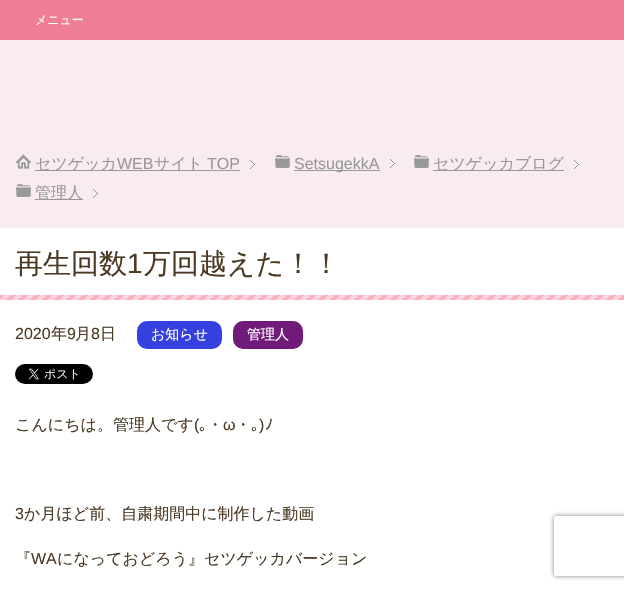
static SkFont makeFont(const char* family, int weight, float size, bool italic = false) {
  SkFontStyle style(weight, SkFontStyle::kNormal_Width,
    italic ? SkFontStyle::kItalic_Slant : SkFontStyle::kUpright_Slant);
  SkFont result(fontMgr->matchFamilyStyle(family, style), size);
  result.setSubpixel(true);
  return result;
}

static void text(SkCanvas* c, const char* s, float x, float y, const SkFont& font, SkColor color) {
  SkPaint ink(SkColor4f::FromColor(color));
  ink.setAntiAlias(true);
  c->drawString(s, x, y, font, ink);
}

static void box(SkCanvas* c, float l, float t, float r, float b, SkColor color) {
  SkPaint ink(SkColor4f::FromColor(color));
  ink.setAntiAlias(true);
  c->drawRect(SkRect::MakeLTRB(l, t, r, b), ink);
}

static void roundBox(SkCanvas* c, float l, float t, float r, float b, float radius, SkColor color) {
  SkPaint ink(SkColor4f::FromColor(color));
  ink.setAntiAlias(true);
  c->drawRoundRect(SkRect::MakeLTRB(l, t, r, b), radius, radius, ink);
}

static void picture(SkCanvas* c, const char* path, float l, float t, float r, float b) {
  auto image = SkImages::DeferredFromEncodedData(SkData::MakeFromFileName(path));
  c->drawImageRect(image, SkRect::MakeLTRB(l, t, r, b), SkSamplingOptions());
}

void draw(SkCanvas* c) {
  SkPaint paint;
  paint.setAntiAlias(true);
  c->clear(0xfff9ecef);
  box(c, 0, 0, 624, 40, 0xffee7e94);
  SkFont face1 = makeFont("WenQuanYi Zen Hei", 500, 12);
  text(c, "メニュー", 35, 24, face1, 0xffffffff);
  picture(c, "img_01.png", 250, 160, 255, 169);
  picture(c, "img_02.png", 16, 154, 31, 169);
  box(c, 35, 170, 240, 171, 0xff999999);
  SkFont face2 = makeFont("WenQuanYi Zen Hei", 500, 16);
  text(c, "セツゲッカ", 35, 169, face2, 0xff999999);
  SkFont face3 = makeFont("Liberation Sans", 400, 16);
  text(c, "WEB", 117, 169, face3, 0xff999999);
  text(c, "サイト", 154, 169, face2, 0xff999999);
  text(c, "TOP", 207, 169, face3, 0xff999999);
  picture(c, "img_01.png", 390, 159, 395, 168);
  picture(c, "img_03.png", 275, 155, 290, 168);
  box(c, 294, 170, 380, 171, 0xff999999);
  text(c, "SetsugekkA", 294, 169, face3, 0xff999999);
  picture(c, "img_01.png", 574, 160, 579, 169);
  picture(c, "img_03.png", 414, 155, 429, 168);
  box(c, 433, 170, 564, 171, 0xff999999);
  text(c, "セツゲッカブログ", 433, 169, face2, 0xff999999);
  picture(c, "img_01.png", 93, 189, 98, 198);
  picture(c, "img_03.png", 16, 184, 31, 197);
  box(c, 35, 199, 83, 200, 0xff999999);
  text(c, "管理人", 35, 198, face2, 0xff999999);
  box(c, 0, 228, 624, 590, 0xffffffff);
  picture(c, "img_04.png", 0, 295, 624, 300);
  SkFont face4 = makeFont("WenQuanYi Zen Hei", 500, 28);
  text(c, "再生回数", 15, 273, face4, 0xff4b3a24);
  SkFont face5 = makeFont("Liberation Sans", 400, 28);
  text(c, "1", 127, 273, face5, 0xff4b3a24);
  text(c, "万回越えた！！", 143, 273, face4, 0xff4b3a24);
  text(c, "2020", 15, 339, face3, 0xff4b3a24);
  text(c, "年", 51, 339, face2, 0xff4b3a24);
  text(c, "9", 67, 339, face3, 0xff4b3a24);
  text(c, "月", 75, 339, face2, 0xff4b3a24);
  text(c, "8", 91, 339, face3, 0xff4b3a24);
  text(c, "日", 100, 339, face2, 0xff4b3a24);
  roundBox(c, 137, 321, 222, 349, 10, 0xff3540de);
  SkFont face6 = makeFont("WenQuanYi Zen Hei", 500, 14);
  text(c, "お知らせ", 151, 339, face6, 0xffffffff);
  roundBox(c, 233, 321, 303, 349, 10, 0xff701b79);
  text(c, "管理人", 247, 339, face6, 0xffffffff);
  picture(c, "img_05.png", 15, 364, 93, 384);
  text(c, "こんにちは。管理人です", 15, 430, face2, 0xff4b3a24);
  text(c, "(", 194, 430, face3, 0xff4b3a24);
  text(c, "・", 207, 430, face2, 0xff4b3a24);
  text(c, "ω", 223, 430, face3, 0xff4b3a24);
  text(c, "・", 235, 430, face2, 0xff4b3a24);
  text(c, ")", 259, 430, face3, 0xff4b3a24);
  SkFont face7 = makeFont("IPAPGothic", 400, 16);
  text(c, "ﾉ", 265, 430, face7, 0xff4b3a24);
  text(c, "｡", 199, 430, face7, 0xff4b3a24);
  text(c, "｡", 251, 430, face7, 0xff4b3a24);
  text(c, "3", 15, 519, face3, 0xff4b3a24);
  text(c, "か月ほど前、自粛期間中に制作した動画", 24, 519, face2, 0xff4b3a24);
  text(c, "『", 15, 564, face2, 0xff4b3a24);
  text(c, "WA", 31, 564, face3, 0xff4b3a24);
  text(c, "になっておどろう』セツゲッカバージョン", 57, 564, face2, 0xff4b3a24);
  c->save();
  c->clipPath(SkPathBuilder(SkPathFillType::kEvenOdd).moveTo(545, 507).lineTo(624, 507).lineTo(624, 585).lineTo(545, 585).close().moveTo(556, 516).lineTo(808, 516).cubicTo(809, 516, 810, 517, 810, 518).lineTo(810, 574).cubicTo(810, 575, 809, 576, 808, 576).lineTo(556, 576).cubicTo(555, 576, 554, 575, 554, 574).lineTo(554, 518).cubicTo(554, 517, 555, 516, 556, 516).close().detach(), true);
  paint.setColor(0xff808080);
  paint.setMaskFilter(SkMaskFilter::MakeBlur(kNormal_SkBlurStyle, 2.5f));
  c->drawRoundRect(SkRect::MakeLTRB(554, 516, 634, 576), 2, 2, paint);
  paint.setMaskFilter(nullptr);
  c->restore();
}
